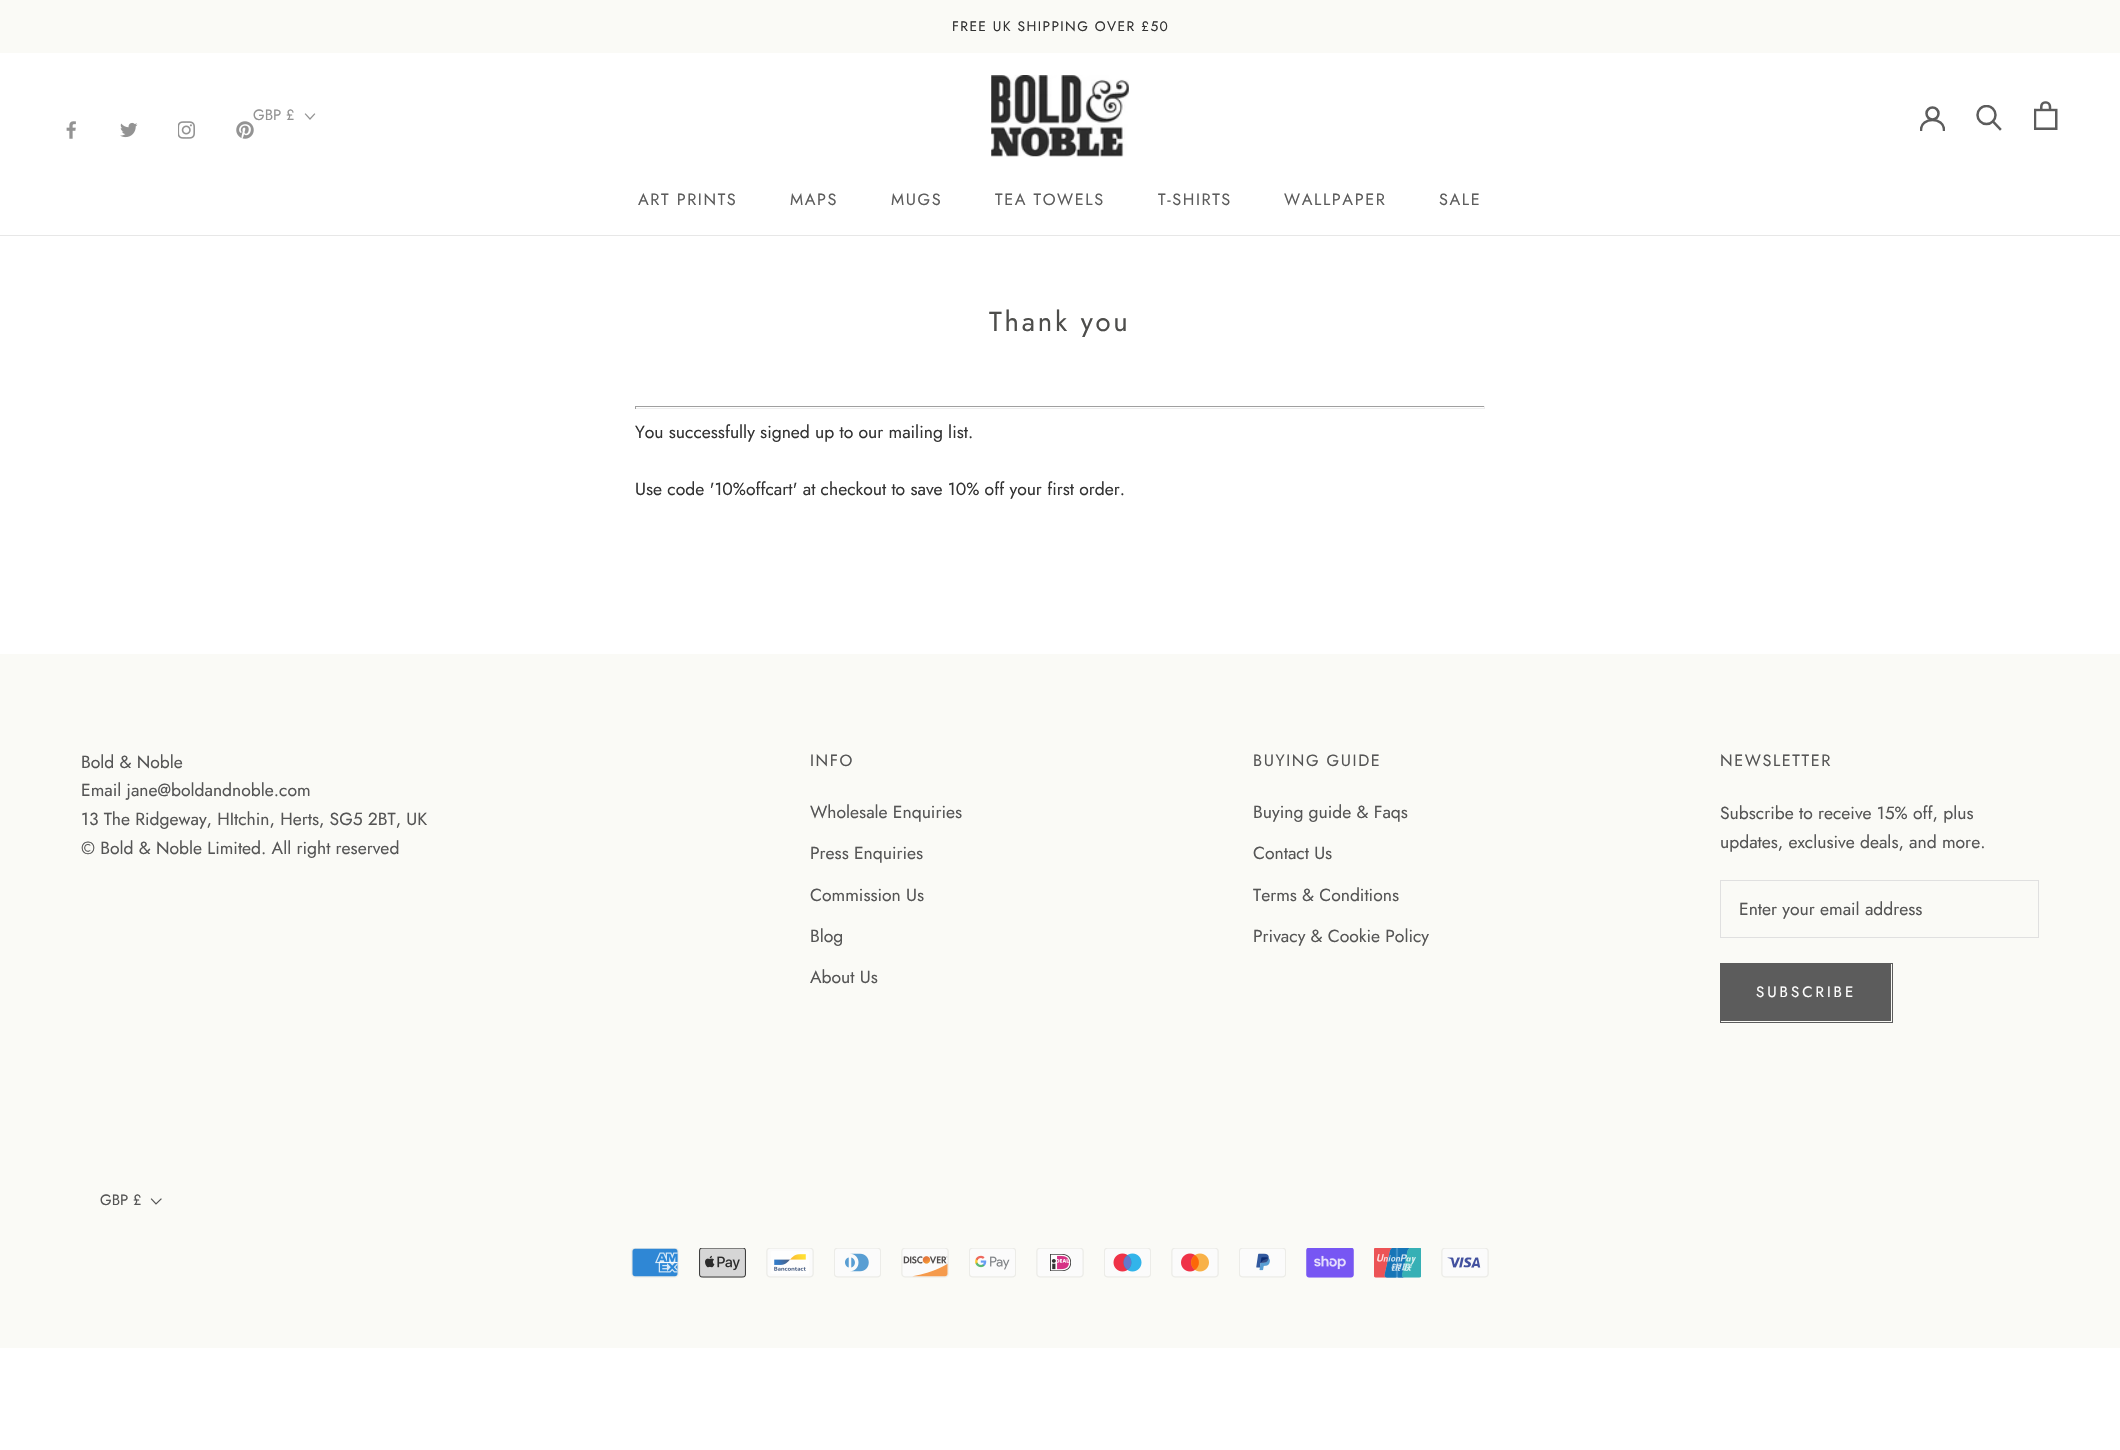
static SkFont makeFont(const char* family, int weight, float size, bool italic = false) {
  SkFontStyle style(weight, SkFontStyle::kNormal_Width,
    italic ? SkFontStyle::kItalic_Slant : SkFontStyle::kUpright_Slant);
  SkFont result(fontMgr->matchFamilyStyle(family, style), size);
  result.setSubpixel(true);
  return result;
}

static void text(SkCanvas* c, const char* s, float x, float y, const SkFont& font, SkColor color) {
  SkPaint ink(SkColor4f::FromColor(color));
  ink.setAntiAlias(true);
  c->drawString(s, x, y, font, ink);
}

static void spacedText(SkCanvas* c, const char* s, float x, float y, const SkFont& font, const SkPaint& ink, float letter, float word) {
  std::vector<SkGlyphID> glyphs(font.countText(s, strlen(s), SkTextEncoding::kUTF8));
  std::vector<float> xs(glyphs.size());
  font.textToGlyphs(s, strlen(s), SkTextEncoding::kUTF8, glyphs);
  font.getXPos(glyphs, xs, x);
  float extra = 0;
  for (size_t i = 0; i < glyphs.size(); i++) {
    xs[i] += extra;
    extra += letter + word * (glyphs[i] == font.unicharToGlyph(' '));
  }
  c->drawTextBlob(SkTextBlob::MakeFromPosHGlyphs(glyphs, xs, y, font), 0, 0, ink);
}

static void box(SkCanvas* c, float l, float t, float r, float b, SkColor color) {
  SkPaint ink(SkColor4f::FromColor(color));
  ink.setAntiAlias(true);
  c->drawRect(SkRect::MakeLTRB(l, t, r, b), ink);
}

static void picture(SkCanvas* c, const char* path, float l, float t, float r, float b) {
  auto image = SkImages::DeferredFromEncodedData(SkData::MakeFromFileName(path));
  c->drawImageRect(image, SkRect::MakeLTRB(l, t, r, b), SkSamplingOptions());
}

void draw(SkCanvas* c) {
  SkPaint paint;
  paint.setAntiAlias(true);
  c->clear(0xffffffff);
  box(c, 0, 0, 2120, 53, 0xfffafaf6);
  SkFont face1 = makeFont("Jost", 400, 13.75f);
  paint.setColor(0xff333333);
  spacedText(c, "FREE UK SHIPPING OVER £50", 952, 31, face1, paint, 1.4f, 0);
  box(c, 0, 235, 2120, 236, 0xffe7e7e7);
  picture(c, "img_01.png", 991, 75, 1129, 157);
  c->save();
  c->clipRect(SkRect::MakeLTRB(1920, 106, 1945, 131));
  paint.setStyle(SkPaint::kStroke_Style);
  paint.setStrokeWidth(2.5f);
  paint.setStrokeCap(SkPaint::kSquare_Cap);
  paint.setColor(0xff5c5c5c);
  c->drawPath(SkPathBuilder().moveTo(1921, 130).cubicTo(1921, 116.5f, 1944, 116.5f, 1944, 130).detach(), paint);
  c->restore();
  paint.setStrokeCap(SkPaint::kButt_Cap);
  c->drawCircle(1932.5f, 113.5f, 6, paint);
  paint.setStrokeCap(SkPaint::kSquare_Cap);
  c->drawPath(SkPathBuilder().moveTo(2000, 129).lineTo(1993, 121.5f).detach(), paint);
  c->save();
  c->clipRect(SkRect::MakeLTRB(1976, 105, 2003, 131));
  paint.setStrokeCap(SkPaint::kButt_Cap);
  c->drawCircle(1986.5f, 115, 9, paint);
  c->restore();
  picture(c, "img_02.png", 2034, 101, 2058, 130);
  SkFont face2 = makeFont("Jost", 400, 15);
  text(c, "GBP £", 253, 120, face2, 0xff939393);
  paint.setStrokeWidth(1.2f);
  paint.setStrokeCap(SkPaint::kSquare_Cap);
  paint.setColor(0xff939393);
  c->drawPath(SkPathBuilder().moveTo(314.5f, 114).lineTo(310, 119).lineTo(305.5f, 114).detach(), paint);
  picture(c, "img_03.png", 66, 121, 76, 139);
  picture(c, "img_04.png", 120, 122, 138, 138);
  picture(c, "img_05.png", 178, 121, 195, 139);
  picture(c, "img_06.png", 236, 121, 254, 139);
  SkFont face3 = makeFont("Jost", 400, 16.25f);
  paint.setStyle(SkPaint::kFill_Style);
  paint.setColor(0xff5c5c5c);
  spacedText(c, "ART PRINTS", 638, 205, face3, paint, 1.6f, 0);
  spacedText(c, "MAPS", 790, 205, face3, paint, 1.6f, 0);
  spacedText(c, "MUGS", 891, 205, face3, paint, 1.6f, 0);
  spacedText(c, "TEA TOWELS", 995, 205, face3, paint, 1.6f, 0);
  spacedText(c, "T-SHIRTS", 1158, 205, face3, paint, 1.6f, 0);
  spacedText(c, "WALLPAPER", 1284, 205, face3, paint, 1.6f, 0);
  spacedText(c, "SALE", 1439, 205, face3, paint, 1.6f, 0);
  SkFont face4 = makeFont("Jost", 400, 27.5f);
  paint.setColor(0xff4d4d4b);
  spacedText(c, "Thank you", 989, 331, face4, paint, 2.75f, 0);
  box(c, 635, 406, 1485, 407, 0xff9f9f9f);
  box(c, 1484, 406, 1485, 409, 0xffeeeeee);
  box(c, 635, 408, 1485, 409, 0xffeeeeee);
  box(c, 635, 406, 636, 409, 0xff9f9f9f);
  SkFont face5 = makeFont("Jost", 400, 17.5f);
  text(c, "You successfully signed up to our mailing list.", 635, 438, face5, 0xff333333);
  text(c, "Use code '10%offcart' at checkout to save 10% off your first order.", 635, 495, face5, 0xff333333);
  box(c, 0, 654, 2120, 1348, 0xfffafaf6);
  text(c, "Bold & Noble", 81, 768, face5, 0xff555555);
  text(c, "Email jane@boldandnoble.com", 81, 796, face5, 0xff555555);
  text(c, "13 The Ridgeway, HItchin, Herts, SG5 2BT, UK", 81, 825, face5, 0xff555555);
  text(c, "© Bold & Noble Limited. All right reserved", 81, 854, face5, 0xff555555);
  paint.setColor(0xff555555);
  spacedText(c, "INFO", 810, 766, face3, paint, 1.6f, 0);
  text(c, "Wholesale Enquiries", 810, 818, face5, 0xff555555);
  text(c, "Press Enquiries", 810, 859, face5, 0xff555555);
  text(c, "Commission Us", 810, 901, face5, 0xff555555);
  text(c, "Blog", 810, 942, face5, 0xff555555);
  text(c, "About Us", 810, 983, face5, 0xff555555);
  spacedText(c, "BUYING GUIDE", 1253, 766, face3, paint, 1.6f, 0);
  text(c, "Buying guide & Faqs", 1253, 818, face5, 0xff555555);
  text(c, "Contact Us", 1253, 859, face5, 0xff555555);
  text(c, "Terms & Conditions", 1253, 901, face5, 0xff555555);
  text(c, "Privacy & Cookie Policy", 1253, 942, face5, 0xff555555);
  spacedText(c, "NEWSLETTER", 1720, 766, face3, paint, 1.6f, 0);
  text(c, "Subscribe to receive 15% off, plus", 1720, 819, face5, 0xff555555);
  text(c, "updates, exclusive deals, and more.", 1720, 848, face5, 0xff555555);
  paint.setStyle(SkPaint::kStroke_Style);
  paint.setStrokeWidth(1);
  paint.setStrokeCap(SkPaint::kButt_Cap);
  paint.setColor(0xffe0e0e0);
  c->drawRect(SkRect::MakeLTRB(1720.5f, 880.5f, 2038.5f, 937.5f), paint);
  text(c, "Enter your email address", 1739, 915, face5, 0xff555555);
  paint.setColor(0xff5c5c5c);
  c->drawRect(SkRect::MakeLTRB(1720.5f, 963.5f, 1892.5f, 1022.5f), paint);
  box(c, 1721, 964, 1891, 1021, 0xff5c5c5c);
  paint.setStyle(SkPaint::kFill_Style);
  paint.setColor(0xffffffff);
  spacedText(c, "SUBSCRIBE", 1756, 997, face2, paint, 3, 0);
  text(c, "GBP £", 100, 1205, face2, 0xff555555);
  paint.setStyle(SkPaint::kStroke_Style);
  paint.setStrokeWidth(1.2f);
  paint.setStrokeCap(SkPaint::kSquare_Cap);
  paint.setColor(0xff555555);
  c->drawPath(SkPathBuilder().moveTo(161, 1199).lineTo(156, 1204).lineTo(151.5f, 1199).detach(), paint);
  picture(c, "img_07.png", 631, 1248, 679, 1278);
  picture(c, "img_08.png", 699, 1248, 746, 1278);
  picture(c, "img_09.png", 766, 1248, 814, 1278);
  picture(c, "img_10.png", 834, 1248, 881, 1278);
  picture(c, "img_11.png", 901, 1248, 949, 1278);
  picture(c, "img_12.png", 969, 1248, 1016, 1278);
  picture(c, "img_13.png", 1036, 1248, 1084, 1278);
  picture(c, "img_14.png", 1104, 1248, 1151, 1278);
  picture(c, "img_15.png", 1171, 1248, 1219, 1278);
  picture(c, "img_16.png", 1239, 1248, 1286, 1278);
  picture(c, "img_17.png", 1306, 1248, 1354, 1278);
  picture(c, "img_18.png", 1374, 1248, 1421, 1278);
  picture(c, "img_19.png", 1441, 1248, 1489, 1278);
}
